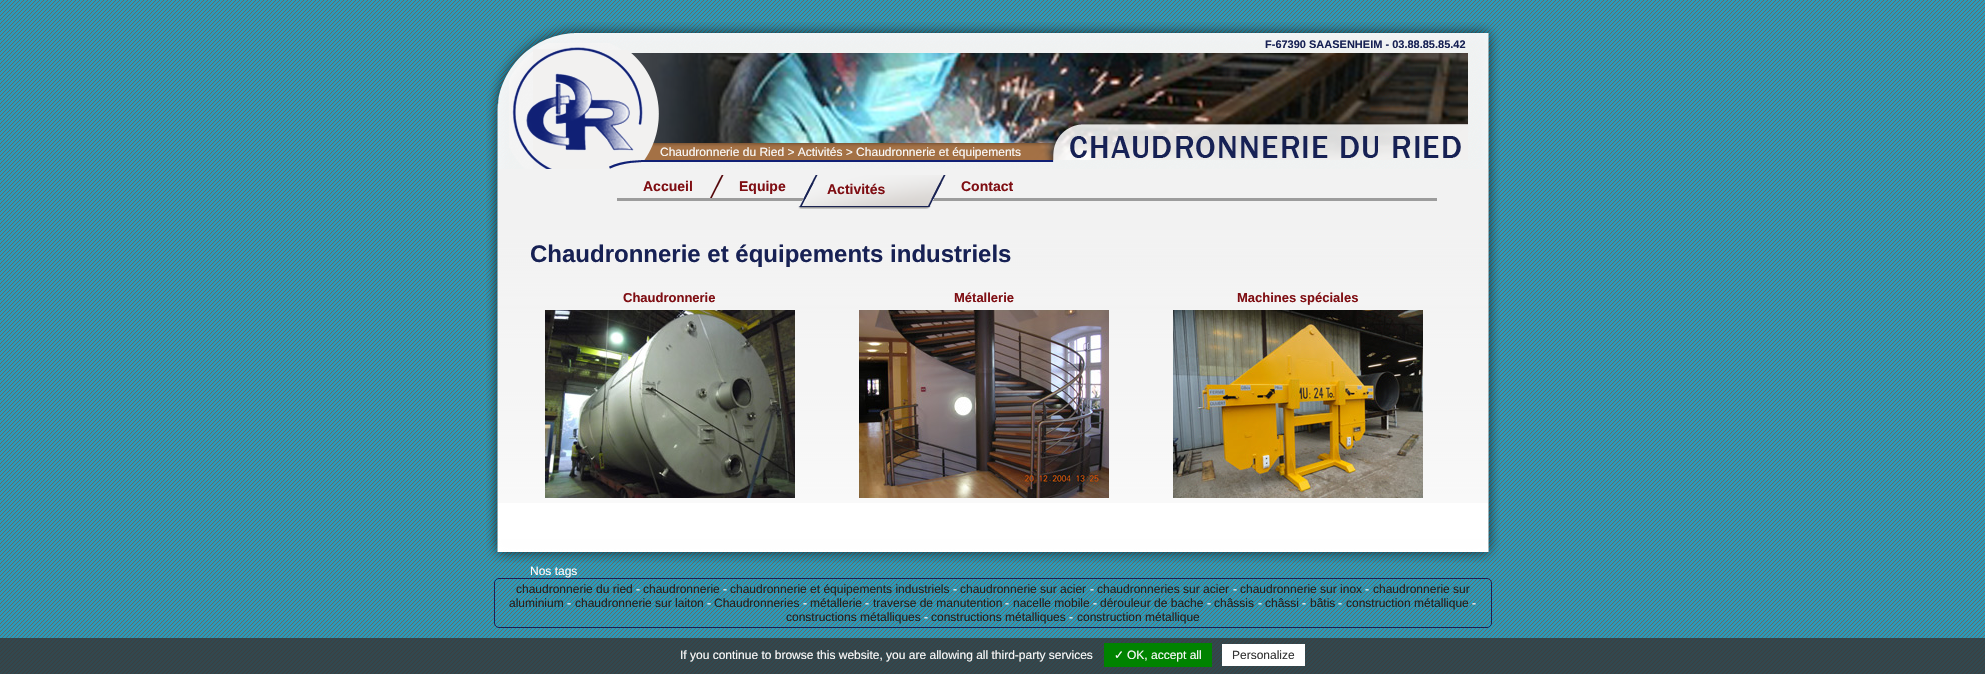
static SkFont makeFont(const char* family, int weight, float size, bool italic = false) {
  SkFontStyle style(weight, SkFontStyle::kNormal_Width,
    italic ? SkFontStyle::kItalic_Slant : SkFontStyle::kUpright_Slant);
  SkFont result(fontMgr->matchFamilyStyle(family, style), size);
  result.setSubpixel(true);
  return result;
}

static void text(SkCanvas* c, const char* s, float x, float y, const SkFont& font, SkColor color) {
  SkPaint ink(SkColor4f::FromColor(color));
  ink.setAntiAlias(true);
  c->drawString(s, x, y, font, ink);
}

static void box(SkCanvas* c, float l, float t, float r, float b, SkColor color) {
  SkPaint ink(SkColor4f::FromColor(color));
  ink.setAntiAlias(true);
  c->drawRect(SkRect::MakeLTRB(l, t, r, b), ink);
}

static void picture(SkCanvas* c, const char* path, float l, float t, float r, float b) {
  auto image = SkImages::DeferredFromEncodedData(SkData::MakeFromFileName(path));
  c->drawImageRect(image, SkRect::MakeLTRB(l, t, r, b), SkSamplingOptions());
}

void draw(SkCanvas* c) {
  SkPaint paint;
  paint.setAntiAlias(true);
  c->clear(0xffffffff);
  picture(c, "img_01.png", 0, 0, 1985, 674);
  picture(c, "img_02.png", 486, 22, 1500, 169);
  SkFont face1 = makeFont("Liberation Sans", 700, 11);
  text(c, "F-67390 SAASENHEIM - 03.88.85.85.42", 1265, 48, face1, 0xff172154);
  SkFont face2 = makeFont("Liberation Sans", 400, 12);
  text(c, "Chaudronnerie du Ried > Activités > Chaudronnerie et équipements", 660, 156, face2, 0xfffbfbfb);
  picture(c, "img_03.png", 486, 169, 498, 539);
  picture(c, "img_04.png", 1488, 169, 1500, 539);
  picture(c, "img_05.png", 498, 169, 1488, 503);
  box(c, 617, 198, 1437, 201, 0xff9c9c9c);
  SkFont face3 = makeFont("Liberation Sans", 700, 14);
  text(c, "Accueil", 643, 191, face3, 0xff7f0e13);
  picture(c, "img_06.png", 710, 175, 724, 198);
  text(c, "Equipe", 739, 191, face3, 0xff7f0e13);
  picture(c, "img_07.png", 798, 175, 946, 209);
  text(c, "Activités", 827, 194, face3, 0xff7f0e13);
  text(c, "Contact", 961, 191, face3, 0xff7f0e13);
  SkFont face4 = makeFont("Liberation Sans", 700, 24);
  text(c, "Chaudronnerie et équipements industriels", 530, 262, face4, 0xff172154);
  SkFont face5 = makeFont("Liberation Sans", 700, 13);
  text(c, "Chaudronnerie", 623, 302, face5, 0xff7f0e13);
  picture(c, "img_08.png", 545, 310, 795, 498);
  text(c, "Métallerie", 954, 302, face5, 0xff7f0e13);
  picture(c, "img_09.png", 859, 310, 1109, 498);
  text(c, "Machines spéciales", 1237, 302, face5, 0xff7f0e13);
  picture(c, "img_10.png", 1173, 310, 1423, 498);
  box(c, 498, 503, 1488, 539, 0xffffffff);
  picture(c, "img_11.png", 486, 539, 1500, 563);
  text(c, "Nos tags", 530, 575, face2, 0xfffbfbfb);
  paint.setStyle(SkPaint::kStroke_Style);
  paint.setStrokeWidth(1);
  paint.setColor(0xff172154);
  c->drawRoundRect(SkRect::MakeLTRB(494.5f, 578.5f, 1491.5f, 627.5f), 4.5f, 4.5f, paint);
  text(c, "chaudronnerie du ried", 516, 593, face2, 0xff202020);
  text(c, "-", 636, 593, face2, 0xfffbfbfb);
  text(c, "chaudronnerie", 643, 593, face2, 0xff202020);
  text(c, "-", 723, 593, face2, 0xfffbfbfb);
  text(c, "chaudronnerie et équipements industriels", 730, 593, face2, 0xff202020);
  text(c, "-", 953, 593, face2, 0xfffbfbfb);
  text(c, "chaudronnerie sur acier", 960, 593, face2, 0xff202020);
  text(c, "-", 1090, 593, face2, 0xfffbfbfb);
  text(c, "chaudronneries sur acier", 1097, 593, face2, 0xff202020);
  text(c, "-", 1233, 593, face2, 0xfffbfbfb);
  text(c, "chaudronnerie sur inox", 1240, 593, face2, 0xff202020);
  text(c, "-", 1365, 593, face2, 0xfffbfbfb);
  text(c, "chaudronnerie sur", 1373, 593, face2, 0xff202020);
  text(c, "aluminium", 509, 607, face2, 0xff202020);
  text(c, "-", 567, 607, face2, 0xfffbfbfb);
  text(c, "chaudronnerie sur laiton", 575, 607, face2, 0xff202020);
  text(c, "-", 707, 607, face2, 0xfffbfbfb);
  text(c, "Chaudronneries", 714, 607, face2, 0xff202020);
  text(c, "-", 803, 607, face2, 0xfffbfbfb);
  text(c, "métallerie", 810, 607, face2, 0xff202020);
  text(c, "-", 865, 607, face2, 0xfffbfbfb);
  text(c, "traverse de manutention", 873, 607, face2, 0xff202020);
  text(c, "-", 1005, 607, face2, 0xfffbfbfb);
  text(c, "nacelle mobile", 1013, 607, face2, 0xff202020);
  text(c, "-", 1093, 607, face2, 0xfffbfbfb);
  text(c, "dérouleur de bache", 1100, 607, face2, 0xff202020);
  text(c, "-", 1207, 607, face2, 0xfffbfbfb);
  text(c, "châssis", 1214, 607, face2, 0xff202020);
  text(c, "-", 1258, 607, face2, 0xfffbfbfb);
  text(c, "châssi", 1265, 607, face2, 0xff202020);
  text(c, "-", 1302, 607, face2, 0xfffbfbfb);
  text(c, "bâtis", 1310, 607, face2, 0xff202020);
  text(c, "-", 1338, 607, face2, 0xfffbfbfb);
  text(c, "construction métallique", 1346, 607, face2, 0xff202020);
  text(c, "-", 1472, 607, face2, 0xfffbfbfb);
  text(c, "constructions métalliques", 786, 621, face2, 0xff202020);
  text(c, "-", 924, 621, face2, 0xfffbfbfb);
  text(c, "constructions métalliques", 931, 621, face2, 0xff202020);
  text(c, "-", 1069, 621, face2, 0xfffbfbfb);
  text(c, "construction métallique", 1077, 621, face2, 0xff202020);
  box(c, 0, 638, 1985, 674, 0xcc333333);
  text(c, "If you continue to browse this website, you are allowing all third-party services", 680, 659, face2, 0xfffbfbfb);
  box(c, 1104, 643, 1212, 667, 0xff008300);
  SkFont face6 = makeFont("DejaVu Sans", 400, 12);
  text(c, "✓", 1114, 659, face6, 0xfffbfbfb);
  text(c, "OK, accept all", 1127, 659, face2, 0xfffbfbfb);
  box(c, 1222, 644, 1305, 666, 0xffffffff);
  text(c, "Personalize", 1232, 659, face2, 0xff333333);
}
